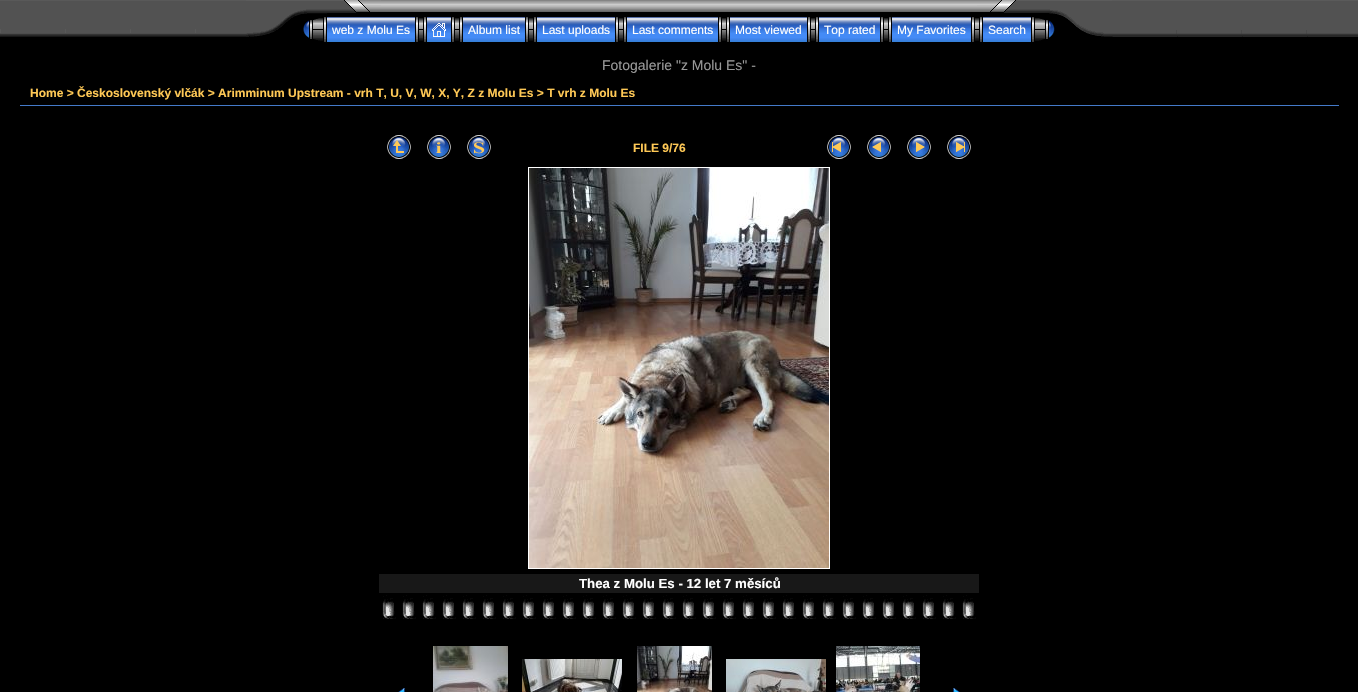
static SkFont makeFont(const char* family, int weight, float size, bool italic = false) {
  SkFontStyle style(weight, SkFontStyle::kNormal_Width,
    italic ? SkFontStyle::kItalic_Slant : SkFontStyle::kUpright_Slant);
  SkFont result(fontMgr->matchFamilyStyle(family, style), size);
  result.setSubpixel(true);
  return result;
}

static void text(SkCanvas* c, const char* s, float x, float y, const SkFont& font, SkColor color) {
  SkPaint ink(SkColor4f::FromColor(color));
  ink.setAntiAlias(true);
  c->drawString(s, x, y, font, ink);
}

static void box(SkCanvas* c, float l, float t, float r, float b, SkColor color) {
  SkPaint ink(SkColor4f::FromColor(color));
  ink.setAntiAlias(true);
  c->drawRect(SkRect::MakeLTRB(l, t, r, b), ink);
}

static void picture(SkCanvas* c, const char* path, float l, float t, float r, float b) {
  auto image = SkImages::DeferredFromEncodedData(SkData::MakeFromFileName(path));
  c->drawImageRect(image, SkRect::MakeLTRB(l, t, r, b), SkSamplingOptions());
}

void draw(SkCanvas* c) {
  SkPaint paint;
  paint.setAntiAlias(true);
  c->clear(0xff000000);
  picture(c, "img_01.png", 0, 0, 246, 37);
  picture(c, "img_02.png", 246, 0, 381, 17);
  picture(c, "img_03.png", 381, 0, 977, 12);
  picture(c, "img_04.png", 977, 0, 1112, 17);
  picture(c, "img_05.png", 246, 17, 293, 37);
  picture(c, "img_06.png", 303, 17, 326, 42);
  picture(c, "img_07.png", 327, 17, 415, 42);
  SkFont face1 = makeFont("Liberation Sans", 400, 12);
  text(c, "web z Molu Es", 332, 34, face1, 0xffffffff);
  picture(c, "img_08.png", 416, 17, 426, 42);
  picture(c, "img_09.png", 427, 17, 451, 42);
  picture(c, "img_10.png", 432, 23, 446, 37);
  picture(c, "img_08.png", 452, 17, 462, 42);
  picture(c, "img_11.png", 463, 17, 525, 42);
  text(c, "Album list", 468, 34, face1, 0xffffffff);
  picture(c, "img_08.png", 526, 17, 536, 42);
  picture(c, "img_12.png", 537, 17, 615, 42);
  text(c, "Last uploads", 542, 34, face1, 0xffffffff);
  picture(c, "img_08.png", 616, 17, 626, 42);
  picture(c, "img_13.png", 627, 17, 718, 42);
  text(c, "Last comments", 632, 34, face1, 0xffffffff);
  picture(c, "img_08.png", 719, 17, 729, 42);
  picture(c, "img_14.png", 730, 17, 807, 42);
  text(c, "Most viewed", 735, 34, face1, 0xffffffff);
  picture(c, "img_08.png", 808, 17, 818, 42);
  picture(c, "img_15.png", 819, 17, 880, 42);
  text(c, "Top rated", 824, 34, face1, 0xffffffff);
  picture(c, "img_08.png", 881, 17, 891, 42);
  picture(c, "img_16.png", 892, 17, 971, 42);
  text(c, "My Favorites", 897, 34, face1, 0xffffffff);
  picture(c, "img_08.png", 972, 17, 982, 42);
  picture(c, "img_17.png", 983, 17, 1031, 42);
  text(c, "Search", 988, 34, face1, 0xffffffff);
  picture(c, "img_18.png", 1031, 17, 1057, 42);
  picture(c, "img_19.png", 1065, 17, 1112, 37);
  picture(c, "img_20.png", 1112, 0, 1358, 37);
  SkFont face2 = makeFont("Liberation Sans", 400, 14);
  text(c, "Fotogalerie \"z Molu Es\" -", 602, 70, face2, 0xff999999);
  box(c, 20, 105, 1339, 106, 0xff447ac9);
  SkFont face3 = makeFont("Liberation Sans", 700, 12);
  text(c, "Home > Československý vlčák > Arimminum Upstream - vrh T, U, V, W, X, Y, Z z Molu Es > T vrh z Molu Es", 30, 97, face3, 0xffffc956);
  picture(c, "img_21.png", 387, 135, 411, 159);
  picture(c, "img_22.png", 427, 135, 451, 159);
  picture(c, "img_23.png", 467, 135, 491, 159);
  text(c, "FILE 9/76", 633, 152, face3, 0xffffc956);
  picture(c, "img_24.png", 827, 135, 851, 159);
  picture(c, "img_25.png", 867, 135, 891, 159);
  picture(c, "img_26.png", 907, 135, 931, 159);
  picture(c, "img_27.png", 947, 135, 971, 159);
  paint.setStyle(SkPaint::kStroke_Style);
  paint.setStrokeWidth(1);
  paint.setColor(0xffffffff);
  c->drawRect(SkRect::MakeLTRB(528.5f, 167.5f, 829.5f, 568.5f), paint);
  picture(c, "img_28.png", 529, 168, 829, 568);
  box(c, 379, 574, 979, 593, 0xff181818);
  SkFont face4 = makeFont("Liberation Sans", 700, 13.25f);
  text(c, "Thea z Molu Es - 12 let 7 měsíců", 579, 588, face4, 0xffffffff);
  picture(c, "img_29.png", 382, 595, 976, 619);
  picture(c, "img_30.png", 398, 688, 405, 692);
  picture(c, "img_31.png", 433, 646, 508, 692);
  picture(c, "img_32.png", 522, 659, 622, 692);
  picture(c, "img_33.png", 637, 646, 712, 692);
  picture(c, "img_34.png", 726, 659, 826, 692);
  picture(c, "img_35.png", 836, 646, 920, 692);
  picture(c, "img_36.png", 953, 688, 960, 692);
}
